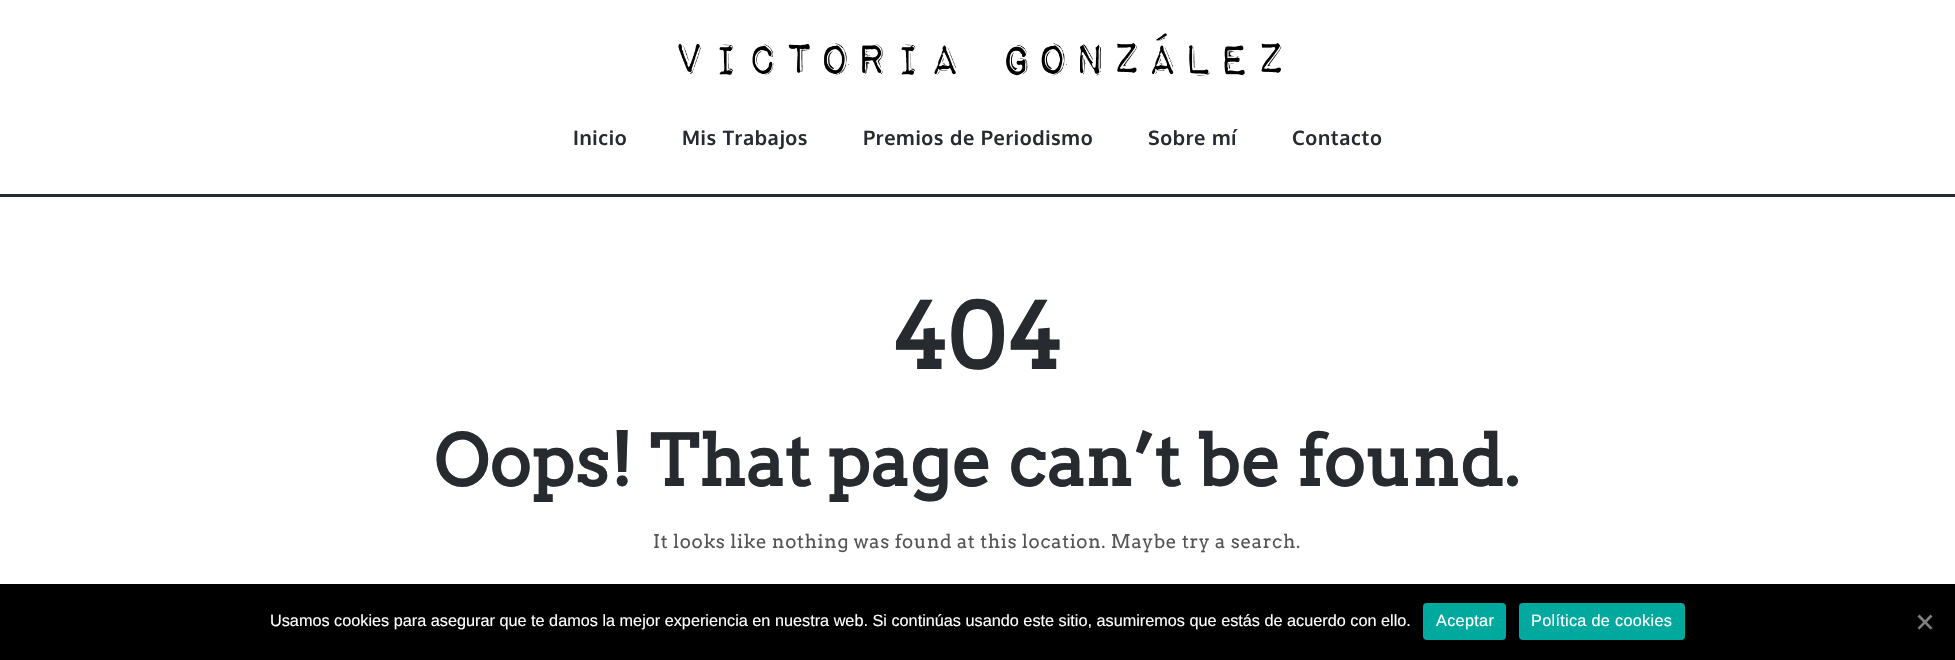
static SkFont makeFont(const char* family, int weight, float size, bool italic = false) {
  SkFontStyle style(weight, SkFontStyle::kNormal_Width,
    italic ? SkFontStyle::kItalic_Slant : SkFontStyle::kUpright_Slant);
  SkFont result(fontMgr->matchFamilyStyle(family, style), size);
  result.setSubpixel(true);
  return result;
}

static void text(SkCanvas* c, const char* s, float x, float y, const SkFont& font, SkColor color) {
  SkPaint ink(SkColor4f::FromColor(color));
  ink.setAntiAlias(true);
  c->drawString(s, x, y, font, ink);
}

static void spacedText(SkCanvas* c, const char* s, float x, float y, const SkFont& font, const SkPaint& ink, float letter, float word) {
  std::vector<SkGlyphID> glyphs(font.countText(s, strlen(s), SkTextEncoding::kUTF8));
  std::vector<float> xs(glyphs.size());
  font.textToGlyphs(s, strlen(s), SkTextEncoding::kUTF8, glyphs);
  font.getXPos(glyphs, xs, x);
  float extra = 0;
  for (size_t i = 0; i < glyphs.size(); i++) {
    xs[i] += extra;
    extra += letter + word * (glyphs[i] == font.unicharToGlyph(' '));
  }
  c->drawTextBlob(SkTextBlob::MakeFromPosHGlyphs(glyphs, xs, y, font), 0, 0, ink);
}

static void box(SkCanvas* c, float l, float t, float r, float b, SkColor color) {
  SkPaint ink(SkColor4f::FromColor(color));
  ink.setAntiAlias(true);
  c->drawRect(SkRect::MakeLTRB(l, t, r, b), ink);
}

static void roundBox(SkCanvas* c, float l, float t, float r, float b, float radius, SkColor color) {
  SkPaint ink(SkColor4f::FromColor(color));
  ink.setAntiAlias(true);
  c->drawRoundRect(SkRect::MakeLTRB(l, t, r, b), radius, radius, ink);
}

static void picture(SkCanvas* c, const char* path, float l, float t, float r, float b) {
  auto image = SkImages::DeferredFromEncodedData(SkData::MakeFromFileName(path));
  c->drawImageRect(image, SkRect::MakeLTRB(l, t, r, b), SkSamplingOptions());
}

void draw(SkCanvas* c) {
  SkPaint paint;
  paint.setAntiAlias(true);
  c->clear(0xffffffff);
  box(c, 0, 194, 1955, 197, 0xff272b2f);
  picture(c, "img_01.png", 678, 33, 1282, 76);
  SkFont face1 = makeFont("Oxygen", 700, 20);
  paint.setColor(0xff272b2f);
  spacedText(c, "Inicio", 573, 145, face1, paint, 0.62f, 0);
  spacedText(c, "Mis Trabajos", 682, 145, face1, paint, 0.62f, 0);
  spacedText(c, "Premios de Periodismo", 863, 145, face1, paint, 0.62f, 0);
  spacedText(c, "Sobre mí", 1148, 145, face1, paint, 0.62f, 0);
  spacedText(c, "Contacto", 1292, 145, face1, paint, 0.62f, 0);
  SkFont face2 = makeFont("Arvo", 700, 90);
  spacedText(c, "404", 892, 369, face2, paint, 0.62f, 0);
  SkFont face3 = makeFont("Arvo", 700, 70);
  spacedText(c, "Oops! That page can’t be found.", 434, 486, face3, paint, 0.62f, 0);
  SkFont face4 = makeFont("Arvo", 400, 18.75f);
  paint.setColor(0xff555555);
  spacedText(c, "It looks like nothing was found at this location. Maybe try a search.", 653, 548, face4, paint, 0.62f, 0);
  box(c, 0, 584, 1955, 660, 0xff000000);
  SkFont face5 = makeFont("Liberation Sans", 400, 16.25f);
  text(c, "Usamos cookies para asegurar que te damos la mejor experiencia en nuestra web. Si continúas usando este sitio, asumiremos que estás de acuerdo con ello.", 270, 626, face5, 0xffffffff);
  roundBox(c, 1423, 603, 1506, 640, 4, 0xff00a99d);
  paint.setColor(0xffffffff);
  spacedText(c, "Aceptar", 1436, 626, face5, paint, 0.3f, 0);
  roundBox(c, 1519, 603, 1685, 640, 4, 0xff00a99d);
  spacedText(c, "Política de cookies", 1531, 626, face5, paint, 0.3f, 0);
  paint.setColor(0xff808080);
  c->drawPath(SkPathBuilder().moveTo(1930.5f, 614.5f).lineTo(1932.5f, 616.5f).lineTo(1919.5f, 629.5f).lineTo(1917.5f, 628).close().detach(), paint);
  c->drawPath(SkPathBuilder().moveTo(1917.5f, 616.5f).lineTo(1919.5f, 614.5f).lineTo(1932.5f, 628).lineTo(1930.5f, 629.5f).close().detach(), paint);
}
